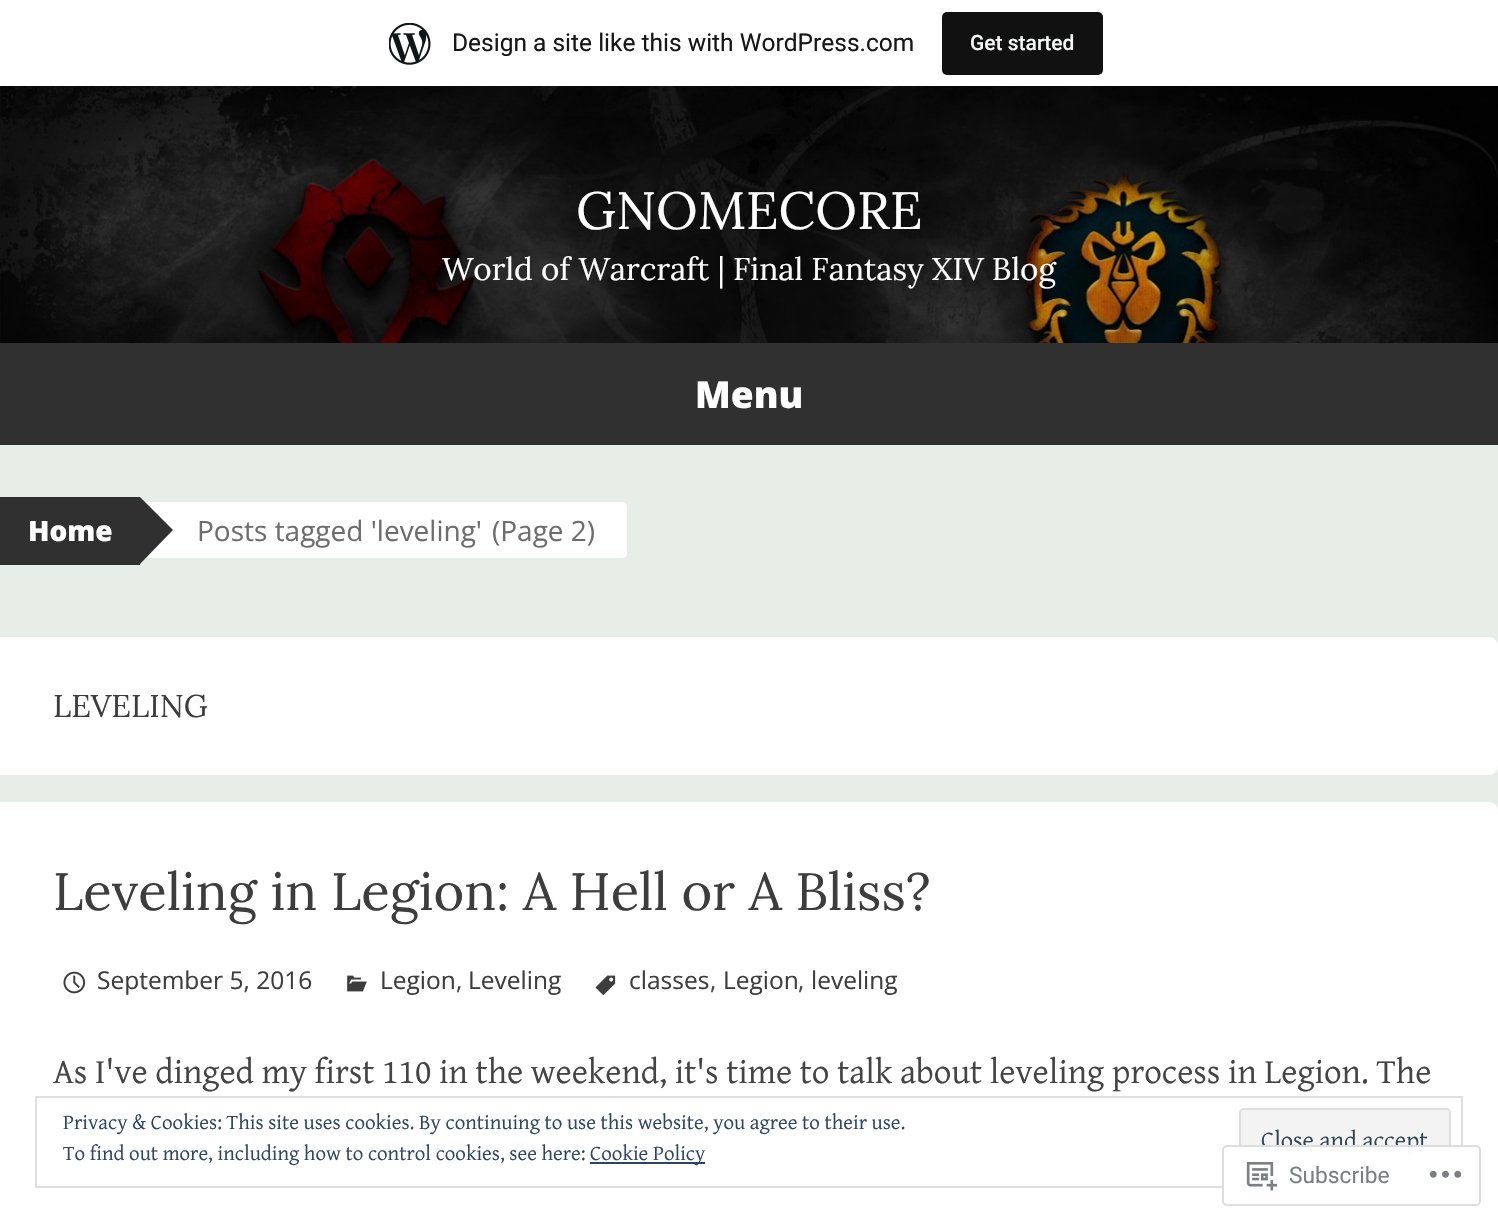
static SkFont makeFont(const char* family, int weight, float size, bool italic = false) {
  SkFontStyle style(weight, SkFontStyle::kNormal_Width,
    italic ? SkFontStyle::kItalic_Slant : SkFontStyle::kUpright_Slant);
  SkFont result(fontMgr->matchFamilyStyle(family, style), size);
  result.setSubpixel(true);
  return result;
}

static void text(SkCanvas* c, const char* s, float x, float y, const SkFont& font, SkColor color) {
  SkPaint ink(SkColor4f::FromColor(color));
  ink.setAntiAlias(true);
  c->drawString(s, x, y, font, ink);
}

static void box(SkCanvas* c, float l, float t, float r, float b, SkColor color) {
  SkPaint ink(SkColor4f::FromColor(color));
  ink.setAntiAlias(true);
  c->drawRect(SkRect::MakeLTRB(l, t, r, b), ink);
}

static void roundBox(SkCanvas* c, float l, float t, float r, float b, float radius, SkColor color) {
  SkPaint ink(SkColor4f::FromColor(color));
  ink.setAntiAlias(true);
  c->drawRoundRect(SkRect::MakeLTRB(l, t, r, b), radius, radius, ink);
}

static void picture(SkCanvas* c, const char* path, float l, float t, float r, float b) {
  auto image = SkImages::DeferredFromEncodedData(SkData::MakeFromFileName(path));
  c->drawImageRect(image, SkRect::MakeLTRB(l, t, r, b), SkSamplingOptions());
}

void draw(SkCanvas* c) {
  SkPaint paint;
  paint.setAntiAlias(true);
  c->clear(0xffe7ede7);
  picture(c, "img_02.png", 0, 86, 1498, 343);
  paint.setColor(0x0d000000);
  paint.setMaskFilter(SkMaskFilter::MakeBlur(kNormal_SkBlurStyle, 2));
  c->drawRect(SkRect::MakeLTRB(0, 2, 1498, 88), paint);
  paint.setMaskFilter(nullptr);
  paint.setColor(0x14000000);
  c->drawPath(SkPathBuilder().moveTo(2, 86).lineTo(2, 91).lineTo(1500, 91).lineTo(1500, 5).lineTo(1498, 5).lineTo(1498, 86).close().detach(), paint);
  box(c, 0, 0, 1498, 86, 0xffffffff);
  picture(c, "img_01.png", 389, 23, 431, 65);
  SkFont face1 = makeFont("Roboto", 400, 24.5f);
  text(c, "Design a site like this with WordPress.com", 452, 51, face1, 0xff171717);
  roundBox(c, 942, 12, 1103, 75, 5, 0xff111111);
  SkFont face2 = makeFont("Roboto", 500, 21);
  text(c, "Get started", 970, 50, face2, 0xfff6f7f7);
  SkFont face3 = makeFont("Lora", 400, 52.5f);
  text(c, "GNOMECORE", 576, 229, face3, 0xffffffff);
  SkFont face4 = makeFont("Lora", 400, 31.5f);
  text(c, "World of Warcraft | Final Fantasy XIV Blog", 442, 280, face4, 0xffffffff);
  box(c, 0, 343, 1498, 445, 0xff303030);
  SkFont face5 = makeFont("Open Sans", 800, 37);
  text(c, "Menu", 695, 408, face5, 0xffffffff);
  box(c, 0, 497, 140, 565, 0xff303030);
  SkFont face6 = makeFont("Open Sans", 800, 28);
  text(c, "Home", 28, 541, face6, 0xffffffff);
  box(c, 145, 502, 492, 558, 0xffffffff);
  paint.setColor(0xff303030);
  c->drawPath(SkPathBuilder().moveTo(140, 564).lineTo(140, 497).lineTo(173, 530).close().detach(), paint);
  SkFont face7 = makeFont("Open Sans", 400, 28);
  text(c, "Posts tagged 'leveling'", 197, 541, face7, 0xff6d6d6d);
  paint.setColor(0xffffffff);
  c->drawPath(SkPathBuilder().moveTo(492, 502).lineTo(622, 502).cubicTo(625, 502, 627, 504, 627, 507).lineTo(627, 553).cubicTo(627, 556, 625, 558, 622, 558).lineTo(492, 558).close().detach(), paint);
  text(c, "(Page 2)", 492, 541, face7, 0xff6d6d6d);
  c->drawPath(SkPathBuilder().moveTo(0, 637).lineTo(1489, 637).cubicTo(1494, 637, 1498, 641, 1498, 646).lineTo(1498, 766).cubicTo(1498, 771, 1494, 775, 1489, 775).lineTo(0, 775).close().detach(), paint);
  text(c, "LEVELING", 53, 717, face4, 0xff3d3d3d);
  c->drawPath(SkPathBuilder().moveTo(0, 802).lineTo(1489, 802).cubicTo(1494, 802, 1498, 806, 1498, 811).lineTo(1498, 1222).cubicTo(1498, 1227, 1494, 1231, 1489, 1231).lineTo(0, 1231).close().detach(), paint);
  text(c, "Leveling in Legion: A Hell or A Bliss?", 53, 910, face3, 0xff3d3d3d);
  picture(c, "img_03.png", 63, 971, 86, 994);
  SkFont face8 = makeFont("Open Sans", 400, 24.5f);
  text(c, "September 5, 2016", 97, 989, face8, 0xff3d3d3d);
  picture(c, "img_04.png", 347, 975, 367, 992);
  text(c, "Legion", 380, 989, face8, 0xff3d3d3d);
  text(c, ",", 456, 989, face8, 0xff444444);
  text(c, "Leveling", 468, 989, face8, 0xff3d3d3d);
  picture(c, "img_05.png", 595, 975, 616, 996);
  text(c, "classes", 629, 989, face8, 0xff3d3d3d);
  text(c, ",", 710, 989, face8, 0xff444444);
  text(c, "Legion", 723, 989, face8, 0xff3d3d3d);
  text(c, ",", 798, 989, face8, 0xff444444);
  text(c, "leveling", 811, 989, face8, 0xff3d3d3d);
  SkFont face9 = makeFont("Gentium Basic", 400, 35);
  text(c, "As I've dinged my first 110 in the weekend, it's time to talk about leveling process in Legion. The", 53, 1083, face9, 0xff444444);
  paint.setStyle(SkPaint::kStroke_Style);
  paint.setStrokeWidth(2);
  paint.setColor(0xffdedede);
  c->drawRect(SkRect::MakeLTRB(36, 1097, 1462, 1187), paint);
  SkFont face10 = makeFont("Gentium Basic", 400, 21);
  text(c, "Privacy & Cookies: This site uses cookies. By continuing to use this website, you agree to their use.", 63, 1129, face10, 0xff2e4467);
  text(c, "To find out more, including how to control cookies, see here:", 63, 1160, face10, 0xff2e4467);
  box(c, 590, 1162, 705, 1164, 0xff2e4467);
  text(c, "Cookie Policy", 590, 1160, face10, 0xff2e4467);
  paint.setStyle(SkPaint::kFill_Style);
  paint.setColor(0xfff3f3f3);
  c->drawRoundRect(SkRect::MakeLTRB(1240, 1109, 1450, 1175), 4, 4, paint);
  paint.setStyle(SkPaint::kStroke_Style);
  paint.setColor(0xffdedede);
  c->drawRoundRect(SkRect::MakeLTRB(1240, 1109, 1450, 1175), 4, 4, paint);
  SkFont face11 = makeFont("Gentium Basic", 400, 24.5f);
  text(c, "Close and accept", 1261, 1148, face11, 0xff2e4453);
  roundBox(c, 1222, 1145, 1481, 1206, 5, 0xfaffffff);
  paint.setColor(0xfadcdcde);
  c->drawRoundRect(SkRect::MakeLTRB(1223, 1146, 1480, 1205), 4, 4, paint);
  picture(c, "img_06.png", 1246, 1162, 1278, 1191);
  SkFont face12 = makeFont("Roboto", 400, 22.75f);
  text(c, "Subscribe", 1289, 1183, face12, 0xff7b7f84);
  picture(c, "img_07.png", 1429, 1170, 1462, 1178);
}
